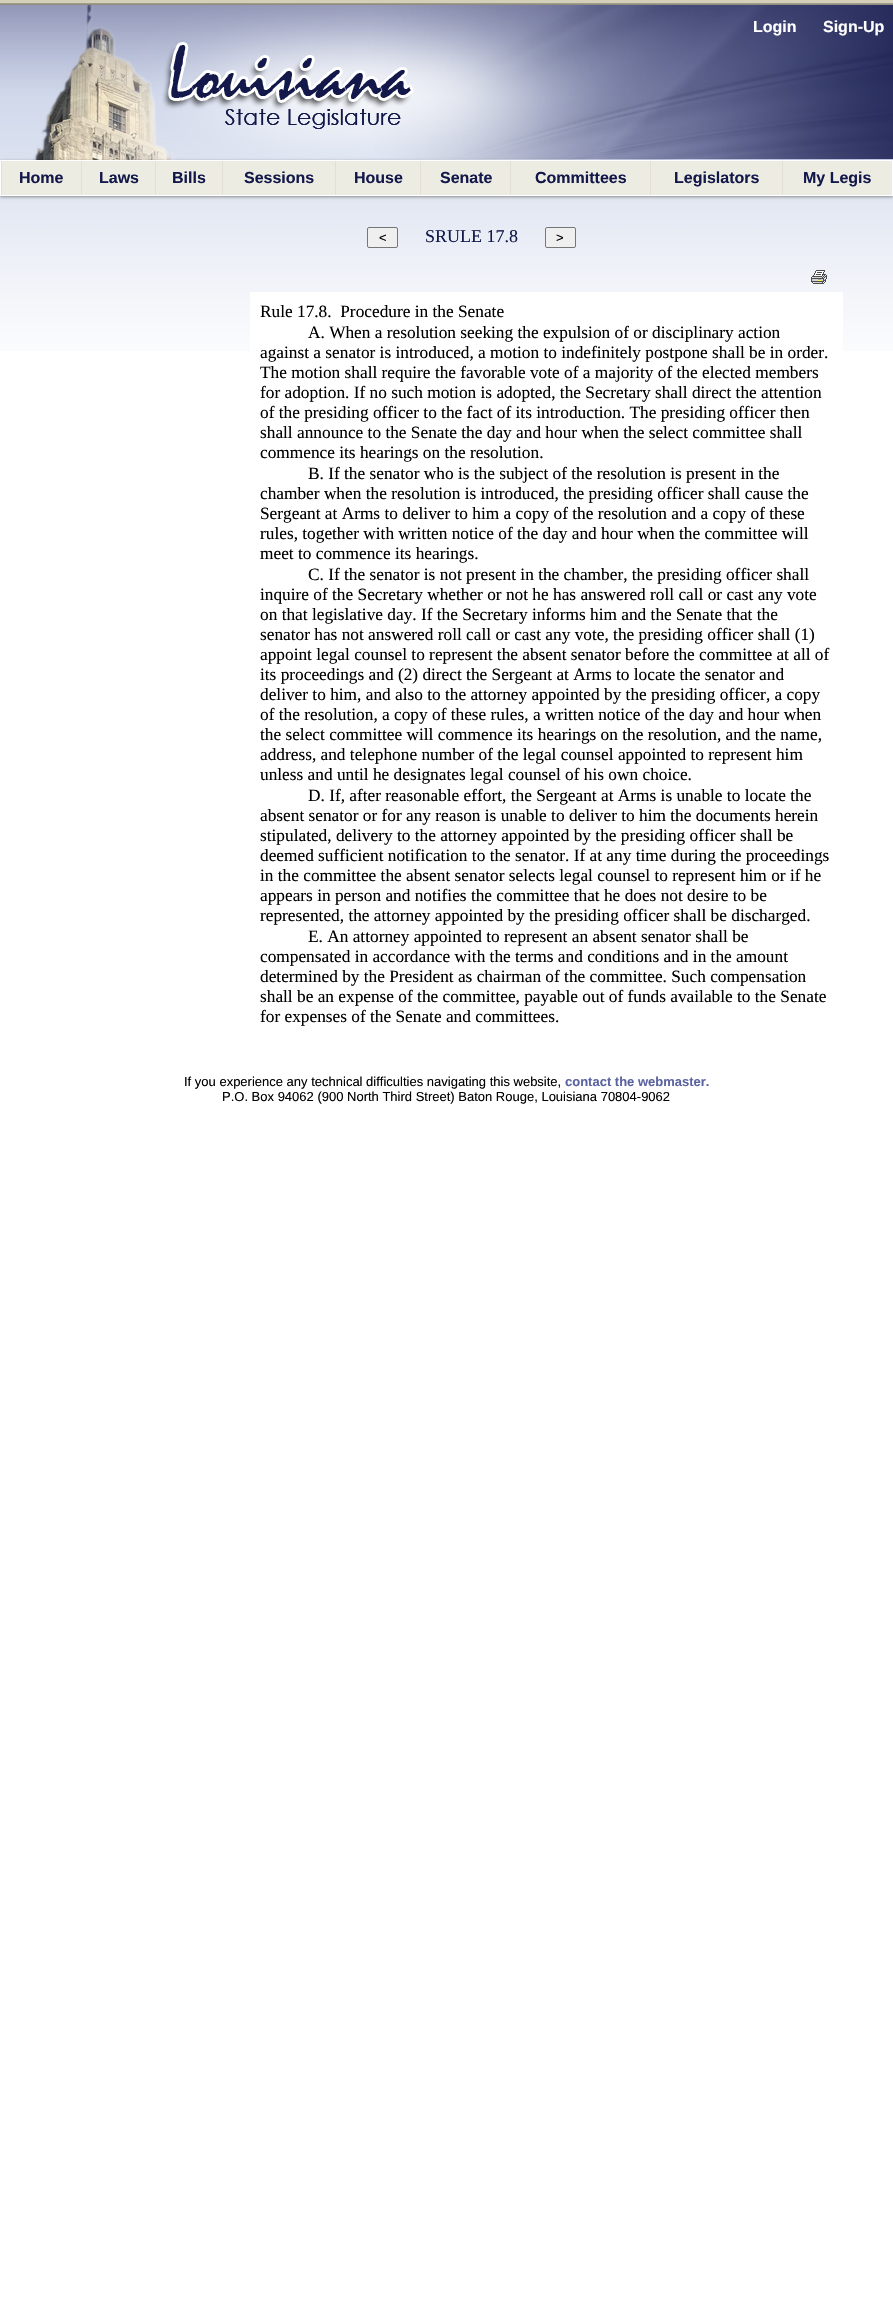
static SkFont makeFont(const char* family, int weight, float size, bool italic = false) {
  SkFontStyle style(weight, SkFontStyle::kNormal_Width,
    italic ? SkFontStyle::kItalic_Slant : SkFontStyle::kUpright_Slant);
  SkFont result(fontMgr->matchFamilyStyle(family, style), size);
  result.setSubpixel(true);
  return result;
}

static void text(SkCanvas* c, const char* s, float x, float y, const SkFont& font, SkColor color) {
  SkPaint ink(SkColor4f::FromColor(color));
  ink.setAntiAlias(true);
  c->drawString(s, x, y, font, ink);
}

static void box(SkCanvas* c, float l, float t, float r, float b, SkColor color) {
  SkPaint ink(SkColor4f::FromColor(color));
  ink.setAntiAlias(true);
  c->drawRect(SkRect::MakeLTRB(l, t, r, b), ink);
}

static void picture(SkCanvas* c, const char* path, float l, float t, float r, float b) {
  auto image = SkImages::DeferredFromEncodedData(SkData::MakeFromFileName(path));
  c->drawImageRect(image, SkRect::MakeLTRB(l, t, r, b), SkSamplingOptions());
}

void draw(SkCanvas* c) {
  SkPaint paint;
  paint.setAntiAlias(true);
  c->clear(0xffffffff);
  picture(c, "img_01.png", 0, 0, 893, 351);
  picture(c, "img_02.png", 0, 5, 893, 160);
  SkFont face1 = makeFont("Liberation Sans", 700, 16);
  text(c, "Login", 753, 32, face1, 0xffffffff);
  text(c, "Sign-Up", 823, 32, face1, 0xffffffff);
  paint.setColor(0x66000000);
  paint.setMaskFilter(SkMaskFilter::MakeBlur(kNormal_SkBlurStyle, 1.5f));
  c->drawRect(SkRect::MakeLTRB(0, 161, 893, 197), paint);
  paint.setMaskFilter(nullptr);
  box(c, 2, 161, 892, 195, 0xffedece3);
  paint.setStyle(SkPaint::kStroke_Style);
  paint.setStrokeWidth(1);
  paint.setColor(0xffffffff);
  c->drawRect(SkRect::MakeLTRB(0.5f, 160.5f, 892.5f, 195.5f), paint);
  box(c, 1, 161, 2, 195, 0xffe1dfd6);
  text(c, "Home", 19, 183, face1, 0xff13184a);
  box(c, 81, 161, 82, 195, 0xffe1dfd6);
  text(c, "Laws", 99, 183, face1, 0xff13184a);
  box(c, 155, 161, 156, 195, 0xffe1dfd6);
  text(c, "Bills", 172, 183, face1, 0xff13184a);
  box(c, 222, 161, 223, 195, 0xffe1dfd6);
  text(c, "Sessions", 244, 183, face1, 0xff13184a);
  box(c, 335, 161, 336, 195, 0xffe1dfd6);
  text(c, "House", 354, 183, face1, 0xff13184a);
  box(c, 420, 161, 421, 195, 0xffe1dfd6);
  text(c, "Senate", 440, 183, face1, 0xff13184a);
  box(c, 510, 161, 511, 195, 0xffe1dfd6);
  text(c, "Committees", 535, 183, face1, 0xff13184a);
  box(c, 650, 161, 651, 195, 0xffe1dfd6);
  text(c, "Legislators", 674, 183, face1, 0xff13184a);
  box(c, 782, 161, 783, 195, 0xffe1dfd6);
  text(c, "My Legis", 803, 183, face1, 0xff13184a);
  paint.setStyle(SkPaint::kFill_Style);
  paint.setColor(0xffefefef);
  c->drawRoundRect(SkRect::MakeLTRB(367.5f, 227.5f, 397.5f, 247.5f), 1.5f, 1.5f, paint);
  paint.setStyle(SkPaint::kStroke_Style);
  paint.setColor(0xff767676);
  c->drawRoundRect(SkRect::MakeLTRB(367.5f, 227.5f, 397.5f, 247.5f), 1.5f, 1.5f, paint);
  SkFont face2 = makeFont("Liberation Sans", 400, 13);
  text(c, "<", 379, 242, face2, 0xff000000);
  SkFont face3 = makeFont("Liberation Serif", 400, 18);
  text(c, "SRULE 17.8", 425, 242, face3, 0xff13184a);
  paint.setStyle(SkPaint::kFill_Style);
  paint.setColor(0xffefefef);
  c->drawRoundRect(SkRect::MakeLTRB(545.5f, 227.5f, 575.5f, 247.5f), 1.5f, 1.5f, paint);
  paint.setStyle(SkPaint::kStroke_Style);
  paint.setColor(0xff767676);
  c->drawRoundRect(SkRect::MakeLTRB(545.5f, 227.5f, 575.5f, 247.5f), 1.5f, 1.5f, paint);
  text(c, ">", 556, 242, face2, 0xff000000);
  picture(c, "img_03.png", 811, 270, 827, 284);
  box(c, 250, 292, 843, 351, 0xffffffff);
  SkFont face4 = makeFont("Liberation Serif", 400, 17.3f);
  text(c, "Rule 17.8.  Procedure in the Senate", 260, 317, face4, 0xff000000);
  text(c, "A. When a resolution seeking the expulsion of or disciplinary action", 308, 338, face4, 0xff000000);
  text(c, "against a senator is introduced, a motion to indefinitely postpone shall be in order.", 260, 358, face4, 0xff000000);
  text(c, "The motion shall require the favorable vote of a majority of the elected members", 260, 378, face4, 0xff000000);
  text(c, "for adoption. If no such motion is adopted, the Secretary shall direct the attention", 260, 398, face4, 0xff000000);
  text(c, "of the presiding officer to the fact of its introduction. The presiding officer then", 260, 418, face4, 0xff000000);
  text(c, "shall announce to the Senate the day and hour when the select committee shall", 260, 438, face4, 0xff000000);
  text(c, "commence its hearings on the resolution.", 260, 458, face4, 0xff000000);
  text(c, "B. If the senator who is the subject of the resolution is present in the", 308, 479, face4, 0xff000000);
  text(c, "chamber when the resolution is introduced, the presiding officer shall cause the", 260, 499, face4, 0xff000000);
  text(c, "Sergeant at Arms to deliver to him a copy of the resolution and a copy of these", 260, 519, face4, 0xff000000);
  text(c, "rules, together with written notice of the day and hour when the committee will", 260, 539, face4, 0xff000000);
  text(c, "meet to commence its hearings.", 260, 559, face4, 0xff000000);
  text(c, "C. If the senator is not present in the chamber, the presiding officer shall", 308, 580, face4, 0xff000000);
  text(c, "inquire of the Secretary whether or not he has answered roll call or cast any vote", 260, 600, face4, 0xff000000);
  text(c, "on that legislative day. If the Secretary informs him and the Senate that the", 260, 620, face4, 0xff000000);
  text(c, "senator has not answered roll call or cast any vote, the presiding officer shall (1)", 260, 640, face4, 0xff000000);
  text(c, "appoint legal counsel to represent the absent senator before the committee at all of", 260, 660, face4, 0xff000000);
  text(c, "its proceedings and (2) direct the Sergeant at Arms to locate the senator and", 260, 680, face4, 0xff000000);
  text(c, "deliver to him, and also to the attorney appointed by the presiding officer, a copy", 260, 700, face4, 0xff000000);
  text(c, "of the resolution, a copy of these rules, a written notice of the day and hour when", 260, 720, face4, 0xff000000);
  text(c, "the select committee will commence its hearings on the resolution, and the name,", 260, 740, face4, 0xff000000);
  text(c, "address, and telephone number of the legal counsel appointed to represent him", 260, 760, face4, 0xff000000);
  text(c, "unless and until he designates legal counsel of his own choice.", 260, 780, face4, 0xff000000);
  text(c, "D. If, after reasonable effort, the Sergeant at Arms is unable to locate the", 308, 801, face4, 0xff000000);
  text(c, "absent senator or for any reason is unable to deliver to him the documents herein", 260, 821, face4, 0xff000000);
  text(c, "stipulated, delivery to the attorney appointed by the presiding officer shall be", 260, 841, face4, 0xff000000);
  text(c, "deemed sufficient notification to the senator. If at any time during the proceedings", 260, 861, face4, 0xff000000);
  text(c, "in the committee the absent senator selects legal counsel to represent him or if he", 260, 881, face4, 0xff000000);
  text(c, "appears in person and notifies the committee that he does not desire to be", 260, 901, face4, 0xff000000);
  text(c, "represented, the attorney appointed by the presiding officer shall be discharged.", 260, 921, face4, 0xff000000);
  text(c, "E. An attorney appointed to represent an absent senator shall be", 308, 942, face4, 0xff000000);
  text(c, "compensated in accordance with the terms and conditions and in the amount", 260, 962, face4, 0xff000000);
  text(c, "determined by the President as chairman of the committee. Such compensation", 260, 982, face4, 0xff000000);
  text(c, "shall be an expense of the committee, payable out of funds available to the Senate", 260, 1002, face4, 0xff000000);
  text(c, "for expenses of the Senate and committees.", 260, 1022, face4, 0xff000000);
  text(c, "If you experience any technical difficulties navigating this website,", 184, 1086, face2, 0xff000000);
  SkFont face5 = makeFont("Liberation Sans", 700, 13);
  text(c, "contact the webmaster.", 565, 1086, face5, 0xff5b63a1);
  text(c, "P.O. Box 94062 (900 North Third Street) Baton Rouge, Louisiana 70804-9062", 222, 1101, face2, 0xff000000);
}
